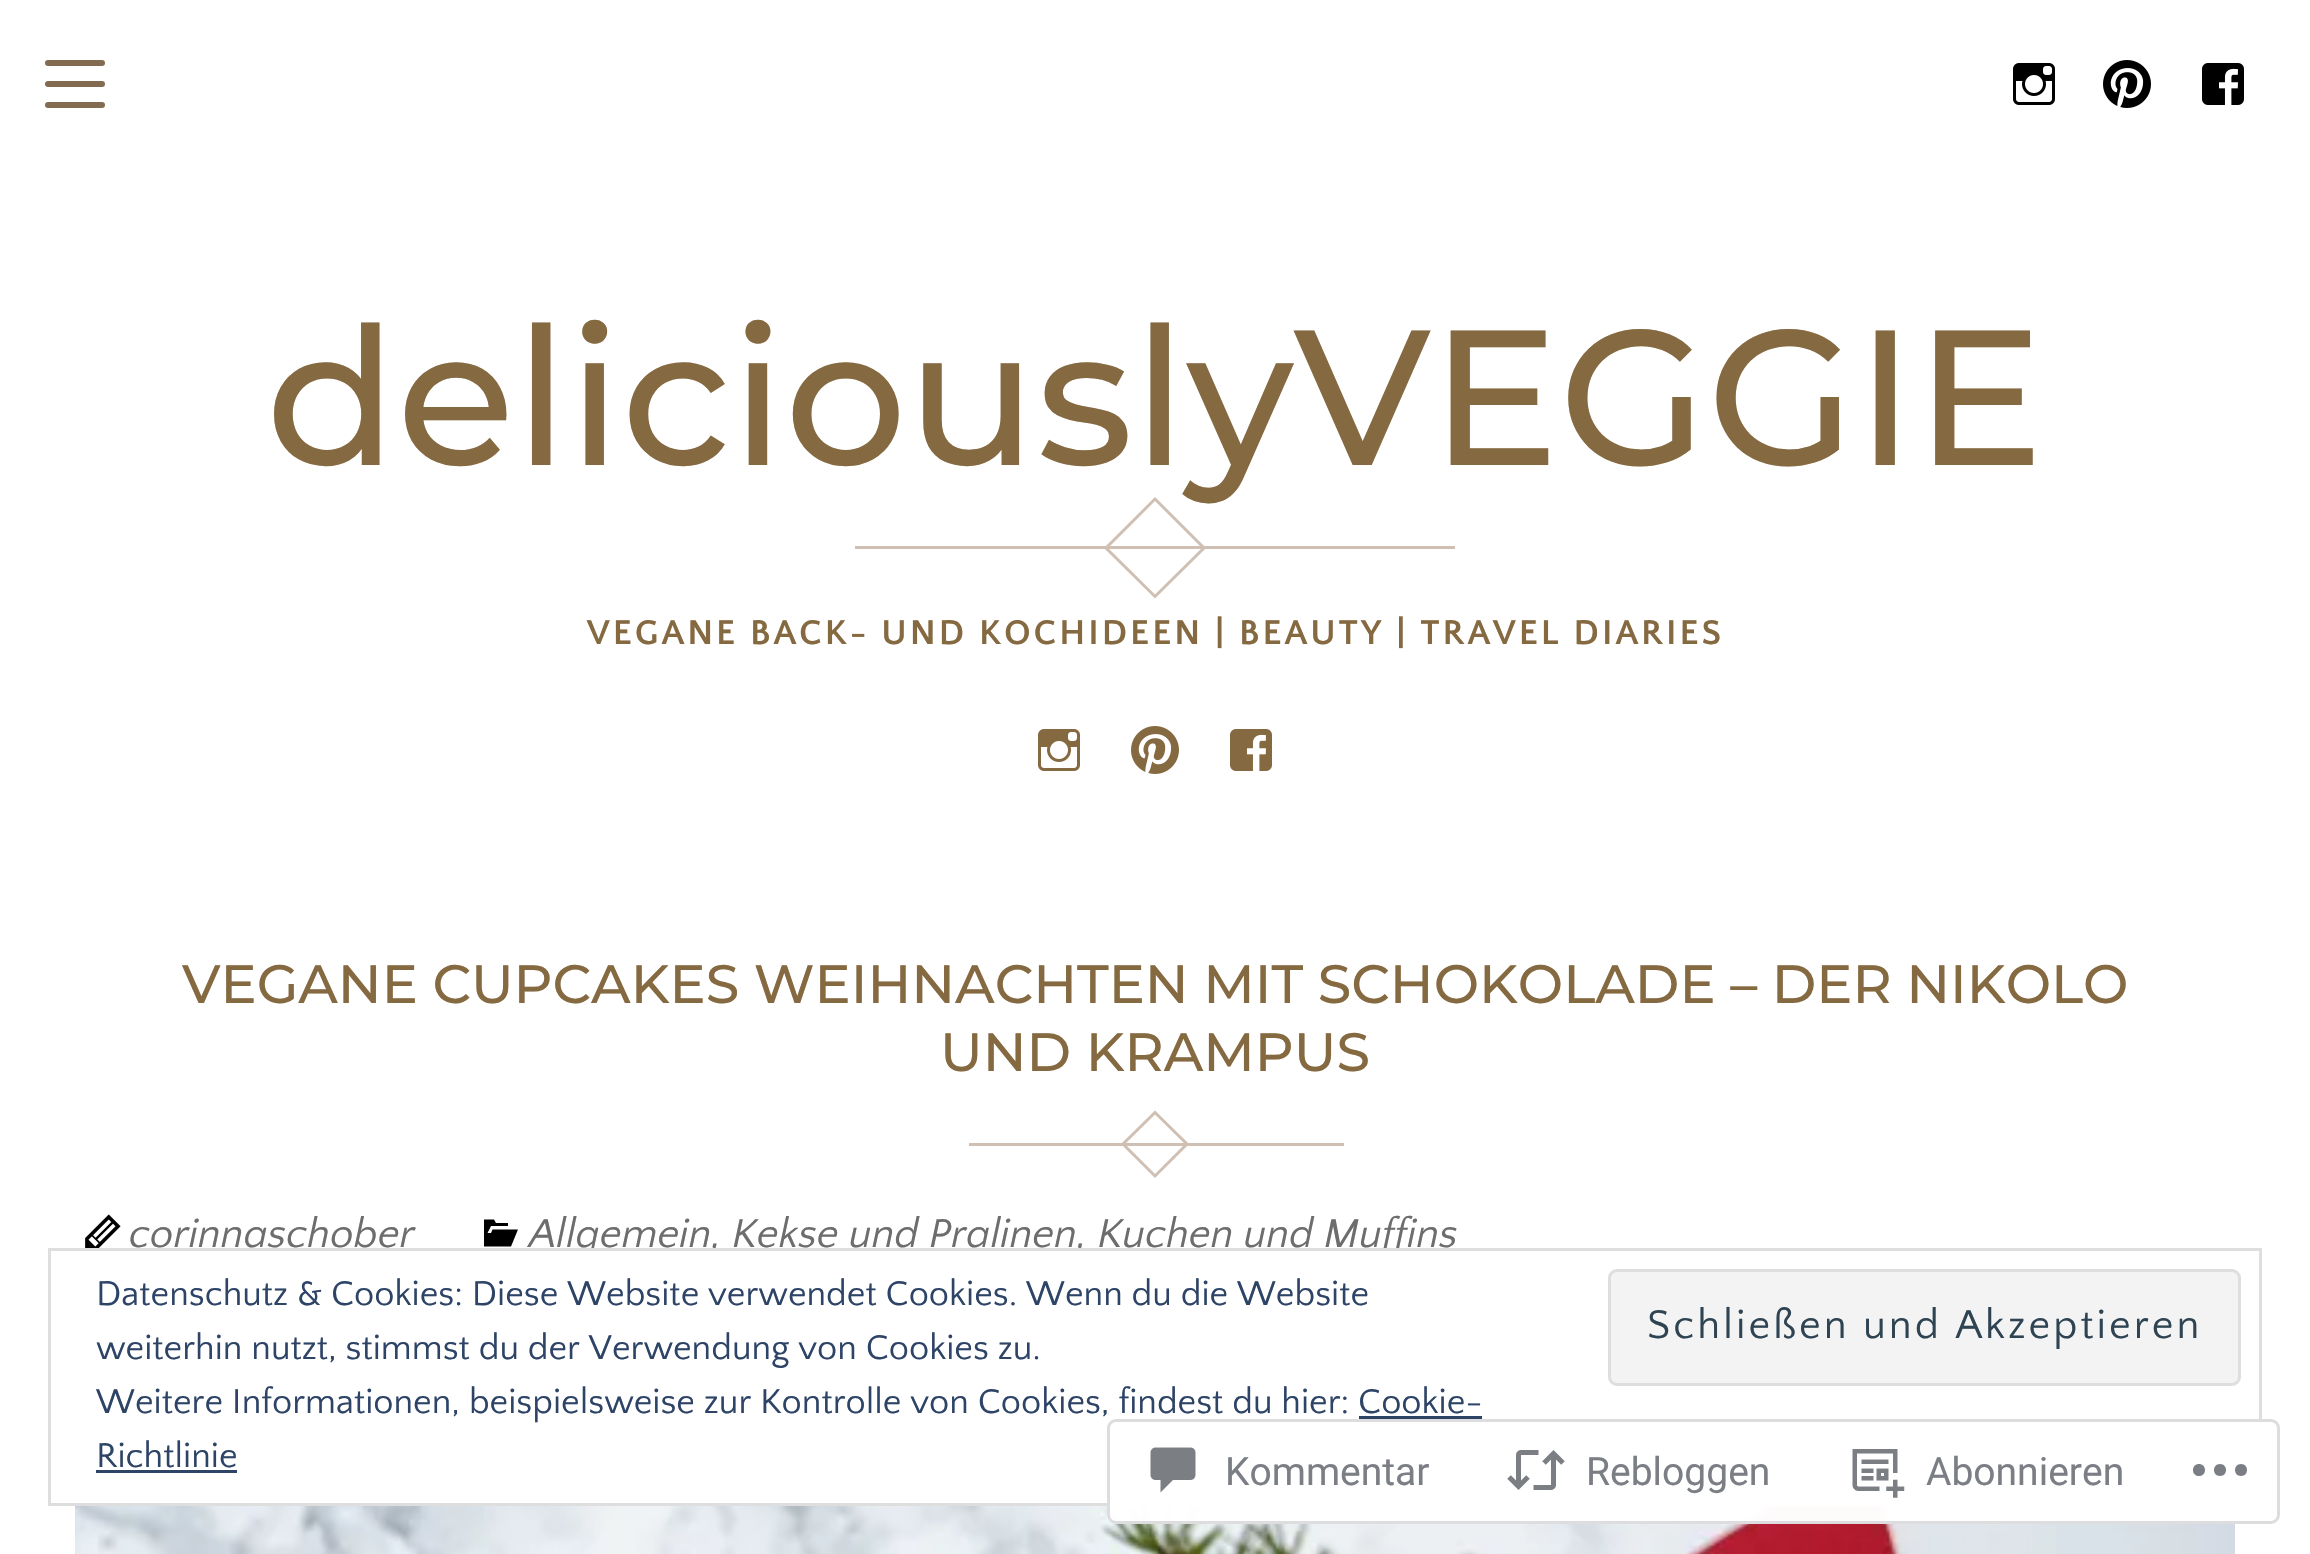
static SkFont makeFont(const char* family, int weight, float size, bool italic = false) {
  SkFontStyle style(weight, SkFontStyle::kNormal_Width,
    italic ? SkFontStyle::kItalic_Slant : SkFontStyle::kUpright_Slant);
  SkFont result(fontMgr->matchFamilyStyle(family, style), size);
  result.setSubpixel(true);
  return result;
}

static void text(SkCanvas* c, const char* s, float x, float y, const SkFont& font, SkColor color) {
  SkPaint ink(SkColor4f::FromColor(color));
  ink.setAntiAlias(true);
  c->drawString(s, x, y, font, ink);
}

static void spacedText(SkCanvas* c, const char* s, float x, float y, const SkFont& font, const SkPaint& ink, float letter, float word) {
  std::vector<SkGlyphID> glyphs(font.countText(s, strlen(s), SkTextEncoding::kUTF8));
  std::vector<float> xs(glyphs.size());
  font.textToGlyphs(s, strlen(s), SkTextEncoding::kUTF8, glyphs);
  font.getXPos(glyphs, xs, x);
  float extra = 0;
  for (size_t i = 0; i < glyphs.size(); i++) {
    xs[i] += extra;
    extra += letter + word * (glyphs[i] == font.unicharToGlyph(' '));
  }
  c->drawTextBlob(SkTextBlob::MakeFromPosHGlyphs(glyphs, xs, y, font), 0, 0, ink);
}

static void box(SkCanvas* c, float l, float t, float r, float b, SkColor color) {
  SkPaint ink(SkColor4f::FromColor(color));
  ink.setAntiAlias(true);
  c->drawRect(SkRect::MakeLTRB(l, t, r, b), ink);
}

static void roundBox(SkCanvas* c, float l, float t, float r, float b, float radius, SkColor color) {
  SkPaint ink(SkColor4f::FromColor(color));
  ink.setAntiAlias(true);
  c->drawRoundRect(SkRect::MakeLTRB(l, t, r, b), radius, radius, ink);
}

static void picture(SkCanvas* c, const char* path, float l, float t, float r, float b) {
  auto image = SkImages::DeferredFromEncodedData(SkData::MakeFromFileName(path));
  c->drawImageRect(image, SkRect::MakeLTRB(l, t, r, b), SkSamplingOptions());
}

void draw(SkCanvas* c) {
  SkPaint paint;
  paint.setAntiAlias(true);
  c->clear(0xffffffff);
  roundBox(c, 45, 102, 105, 108, 3, 0xff836b52);
  roundBox(c, 45, 60, 105, 66, 3, 0xff836b52);
  roundBox(c, 45, 81, 105, 87, 3, 0xff836b52);
  picture(c, "img_01.png", 2013, 63, 2055, 105);
  picture(c, "img_02.png", 2103, 60, 2151, 108);
  picture(c, "img_03.png", 2202, 63, 2244, 105);
  SkFont face1 = makeFont("Montserrat", 100, 192);
  text(c, "deliciouslyVEGGIE", 266, 465, face1, 0xff856941);
  box(c, 855, 546, 1455, 549, 0xffd0c0b3);
  paint.setStyle(SkPaint::kStroke_Style);
  paint.setStrokeWidth(3);
  paint.setColor(0xffd0c0b3);
  c->drawPath(SkPathBuilder().moveTo(1155, 499).lineTo(1204, 548).lineTo(1155, 596.5f).lineTo(1106, 548).close().detach(), paint);
  SkFont face2 = makeFont("Quattrocento Sans", 700, 36);
  paint.setStyle(SkPaint::kFill_Style);
  paint.setColor(0xff856941);
  spacedText(c, "VEGANE BACK- UND KOCHIDEEN | BEAUTY | TRAVEL DIARIES", 587, 644, face2, paint, 3, 0);
  picture(c, "img_04.png", 1038, 729, 1080, 771);
  picture(c, "img_05.png", 1131, 726, 1179, 774);
  picture(c, "img_06.png", 1230, 729, 1272, 771);
  SkFont face3 = makeFont("Montserrat", 100, 54);
  text(c, "VEGANE CUPCAKES WEIHNACHTEN MIT SCHOKOLADE – DER NIKOLO", 182, 1003, face3, 0xff856941);
  text(c, "UND KRAMPUS", 940, 1071, face3, 0xff856941);
  box(c, 969, 1143, 1344, 1146, 0xffd0c0b3);
  paint.setStyle(SkPaint::kStroke_Style);
  paint.setColor(0xffd0c0b3);
  c->drawPath(SkPathBuilder().moveTo(1155, 1112.5f).lineTo(1187, 1144).lineTo(1155, 1176).lineTo(1123, 1144).close().detach(), paint);
  picture(c, "img_07.png", 85, 1214, 121, 1248);
  SkFont face4 = makeFont("Quattrocento Sans", 400, 42, true);
  text(c, "corinnaschober", 129, 1247, face4, 0xff6d6d6d);
  paint.setStyle(SkPaint::kFill_Style);
  paint.setColor(0xff000000);
  c->drawPath(SkPathBuilder().moveTo(492.5f, 1229.5f).lineTo(518, 1229.5f).lineTo(511, 1246.5f).lineTo(484, 1246.5f).lineTo(484, 1219.5f).lineTo(494, 1219.5f).lineTo(496, 1223).lineTo(508, 1223).lineTo(508, 1226).lineTo(491, 1226).lineTo(487.5f, 1233).lineTo(491, 1233).close().detach(), paint);
  text(c, "Allgemein, Kekse und Pralinen, Kuchen und Muffins", 529, 1247, face4, 0xff6d6d6d);
  picture(c, "img_08.png", 75, 1506, 2235, 1554);
  box(c, 574, 1251, 1399, 1258, 0xffffffff);
  paint.setStyle(SkPaint::kStroke_Style);
  paint.setColor(0xffdedede);
  c->drawRect(SkRect::MakeLTRB(49.5f, 1249.5f, 2260.5f, 1504.5f), paint);
  SkFont face5 = makeFont("Quattrocento Sans", 400, 36);
  text(c, "Datenschutz & Cookies: Diese Website verwendet Cookies. Wenn du die Website", 96, 1305, face5, 0xff2e4467);
  text(c, "weiterhin nutzt, stimmst du der Verwendung von Cookies zu.", 96, 1359, face5, 0xff2e4467);
  paint.setStyle(SkPaint::kFill_Style);
  paint.setColor(0xfff3f3f3);
  c->drawRoundRect(SkRect::MakeLTRB(1609.5f, 1270.5f, 2239.5f, 1384.5f), 7.5f, 7.5f, paint);
  paint.setStyle(SkPaint::kStroke_Style);
  paint.setColor(0xffdedede);
  c->drawRoundRect(SkRect::MakeLTRB(1609.5f, 1270.5f, 2239.5f, 1384.5f), 7.5f, 7.5f, paint);
  SkFont face6 = makeFont("Quattrocento Sans", 400, 42);
  paint.setStyle(SkPaint::kFill_Style);
  paint.setColor(0xff2e4453);
  spacedText(c, "Schließen und Akzeptieren", 1647, 1338, face6, paint, 3, 0);
  text(c, "Weitere Informationen, beispielsweise zur Kontrolle von Cookies, findest du hier: Cookie-", 96, 1413, face5, 0xff2e4467);
  text(c, "Richtlinie", 96, 1467, face5, 0xff2e4467);
  box(c, 1359, 1416, 1482, 1419, 0xff2e4467);
  box(c, 96, 1470, 237, 1473, 0xff2e4467);
  roundBox(c, 1107, 1419, 2280, 1524, 9, 0xfaffffff);
  paint.setStyle(SkPaint::kStroke_Style);
  paint.setColor(0xfadcdcde);
  c->drawRoundRect(SkRect::MakeLTRB(1108.5f, 1420.5f, 2278.5f, 1522.5f), 7.5f, 7.5f, paint);
  picture(c, "img_09.png", 1150, 1447, 1196, 1493);
  SkFont face7 = makeFont("Roboto", 400, 39);
  text(c, "Kommentar", 1225, 1485, face7, 0xff7b7f85);
  picture(c, "img_10.png", 1507, 1450, 1565, 1490);
  text(c, "Rebloggen", 1586, 1485, face7, 0xff7b7f85);
  picture(c, "img_11.png", 1852, 1449, 1905, 1498);
  text(c, "Abonnieren", 1926, 1485, face7, 0xff7b7f85);
  paint.setStyle(SkPaint::kFill_Style);
  paint.setColor(0xff7b7f85);
  c->drawPath(SkPathBuilder().moveTo(2205, 1470).cubicTo(2205, 1478, 2193, 1478, 2193, 1470).cubicTo(2193, 1462, 2205, 1462, 2205, 1470).close().moveTo(2241, 1464).cubicTo(2233, 1464, 2233, 1476, 2241, 1476).cubicTo(2249, 1476, 2249, 1464, 2241, 1464).close().moveTo(2220, 1464).cubicTo(2212, 1464, 2212, 1476, 2220, 1476).cubicTo(2228, 1476, 2228, 1464, 2220, 1464).close().detach(), paint);
}
